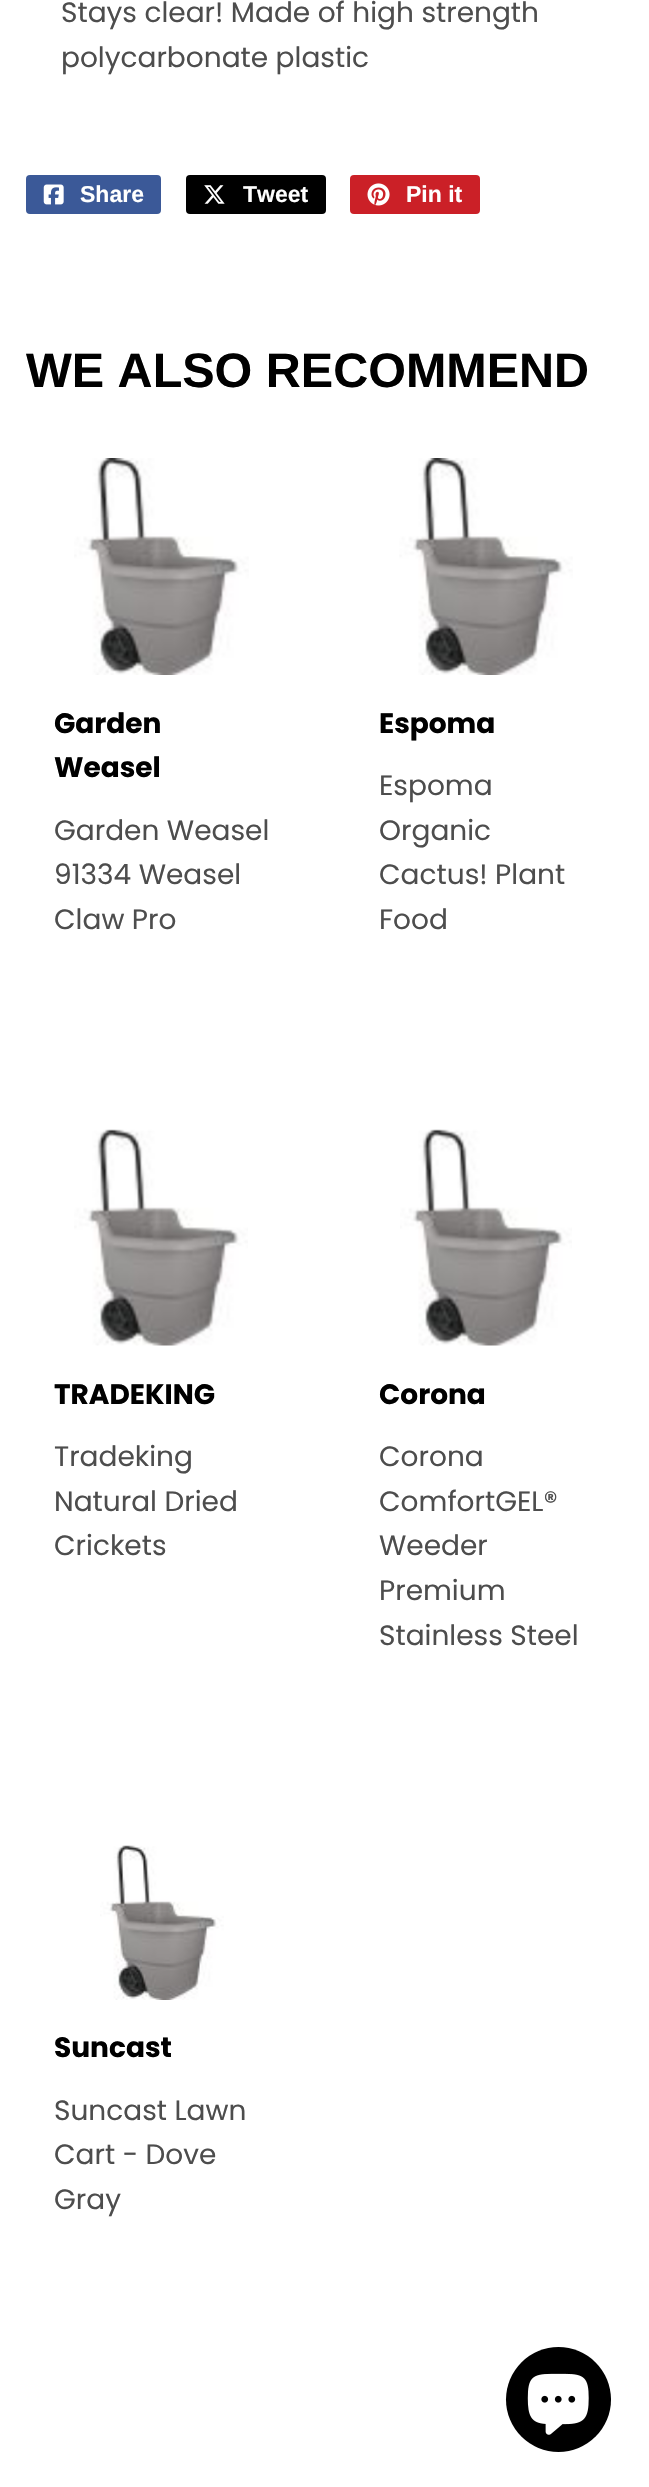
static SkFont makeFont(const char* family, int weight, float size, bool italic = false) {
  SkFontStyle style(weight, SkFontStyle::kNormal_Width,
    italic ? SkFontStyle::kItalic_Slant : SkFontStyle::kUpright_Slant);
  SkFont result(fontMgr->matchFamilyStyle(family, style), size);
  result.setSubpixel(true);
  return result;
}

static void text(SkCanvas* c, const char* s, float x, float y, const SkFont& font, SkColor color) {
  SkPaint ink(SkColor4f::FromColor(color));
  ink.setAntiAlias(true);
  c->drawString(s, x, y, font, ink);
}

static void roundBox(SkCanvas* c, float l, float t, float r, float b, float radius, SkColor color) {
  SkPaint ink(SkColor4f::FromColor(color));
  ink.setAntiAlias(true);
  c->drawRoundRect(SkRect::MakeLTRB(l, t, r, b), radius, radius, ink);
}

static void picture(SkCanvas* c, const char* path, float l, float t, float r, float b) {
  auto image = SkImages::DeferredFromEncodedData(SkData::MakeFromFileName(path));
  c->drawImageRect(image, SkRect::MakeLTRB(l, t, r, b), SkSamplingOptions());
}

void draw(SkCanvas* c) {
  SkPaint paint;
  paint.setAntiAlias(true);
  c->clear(0xffffffff);
  SkFont face1 = makeFont("Poppins", 400, 28);
  text(c, "Stays clear! Made of high strength", 61, 22, face1, 0xff4d4d4d);
  text(c, "polycarbonate plastic", 61, 67, face1, 0xff4d4d4d);
  roundBox(c, 26, 175, 161, 214, 4, 0xff3b5998);
  picture(c, "img_01.png", 43, 184, 64, 205);
  SkFont face2 = makeFont("Liberation Sans", 700, 23);
  text(c, "Share", 80, 202, face2, 0xffffffff);
  roundBox(c, 186, 175, 326, 214, 4, 0xff000000);
  picture(c, "img_02.png", 204, 185, 225, 204);
  text(c, "Tweet", 243, 202, face2, 0xffffffff);
  roundBox(c, 350, 175, 480, 214, 4, 0xffcb2027);
  picture(c, "img_03.png", 367, 183, 390, 206);
  text(c, "Pin it", 406, 202, face2, 0xffffffff);
  SkFont face3 = makeFont("Arimo", 700, 48.5f);
  text(c, "WE ALSO RECOMMEND", 26, 387, face3, 0xff000000);
  picture(c, "img_04.png", 74, 458, 249, 675);
  SkFont face4 = makeFont("Poppins", 700, 28);
  text(c, "Garden", 54, 733, face4, 0xff000000);
  text(c, "Weasel", 54, 777, face4, 0xff000000);
  text(c, "Garden Weasel", 54, 840, face1, 0xff4d4d4d);
  text(c, "91334 Weasel", 54, 884, face1, 0xff4d4d4d);
  text(c, "Claw Pro", 54, 929, face1, 0xff4d4d4d);
  picture(c, "img_05.png", 399, 458, 573, 675);
  text(c, "Espoma", 379, 733, face4, 0xff000000);
  text(c, "Espoma", 379, 795, face1, 0xff4d4d4d);
  text(c, "Organic", 379, 840, face1, 0xff4d4d4d);
  text(c, "Cactus! Plant", 379, 884, face1, 0xff4d4d4d);
  text(c, "Food", 379, 929, face1, 0xff4d4d4d);
  picture(c, "img_06.png", 74, 1129, 248, 1346);
  text(c, "TRADEKING", 54, 1404, face4, 0xff000000);
  text(c, "Tradeking", 54, 1466, face1, 0xff4d4d4d);
  text(c, "Natural Dried", 54, 1511, face1, 0xff4d4d4d);
  text(c, "Crickets", 54, 1555, face1, 0xff4d4d4d);
  picture(c, "img_07.png", 400, 1129, 572, 1346);
  text(c, "Corona", 379, 1404, face4, 0xff000000);
  text(c, "Corona", 379, 1466, face1, 0xff4d4d4d);
  text(c, "ComfortGEL®", 379, 1511, face1, 0xff4d4d4d);
  text(c, "Weeder", 379, 1555, face1, 0xff4d4d4d);
  text(c, "Premium", 379, 1600, face1, 0xff4d4d4d);
  text(c, "Stainless Steel", 379, 1645, face1, 0xff4d4d4d);
  picture(c, "img_08.png", 100, 1845, 224, 2000);
  text(c, "Suncast", 54, 2057, face4, 0xff000000);
  text(c, "Suncast Lawn", 54, 2120, face1, 0xff4d4d4d);
  text(c, "Cart - Dove", 54, 2164, face1, 0xff4d4d4d);
  text(c, "Gray", 54, 2209, face1, 0xff4d4d4d);
  paint.setColor(0xff000000);
  c->drawCircle(558.5f, 2399.5f, 52.5f, paint);
  picture(c, "img_09.png", 527, 2373, 589, 2435);
}
